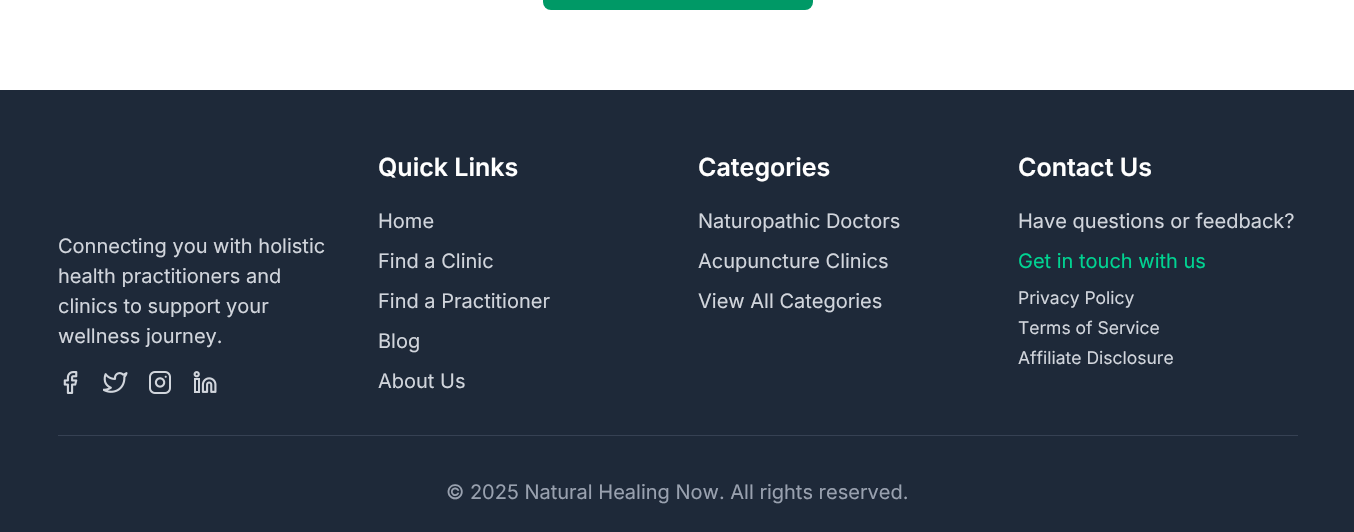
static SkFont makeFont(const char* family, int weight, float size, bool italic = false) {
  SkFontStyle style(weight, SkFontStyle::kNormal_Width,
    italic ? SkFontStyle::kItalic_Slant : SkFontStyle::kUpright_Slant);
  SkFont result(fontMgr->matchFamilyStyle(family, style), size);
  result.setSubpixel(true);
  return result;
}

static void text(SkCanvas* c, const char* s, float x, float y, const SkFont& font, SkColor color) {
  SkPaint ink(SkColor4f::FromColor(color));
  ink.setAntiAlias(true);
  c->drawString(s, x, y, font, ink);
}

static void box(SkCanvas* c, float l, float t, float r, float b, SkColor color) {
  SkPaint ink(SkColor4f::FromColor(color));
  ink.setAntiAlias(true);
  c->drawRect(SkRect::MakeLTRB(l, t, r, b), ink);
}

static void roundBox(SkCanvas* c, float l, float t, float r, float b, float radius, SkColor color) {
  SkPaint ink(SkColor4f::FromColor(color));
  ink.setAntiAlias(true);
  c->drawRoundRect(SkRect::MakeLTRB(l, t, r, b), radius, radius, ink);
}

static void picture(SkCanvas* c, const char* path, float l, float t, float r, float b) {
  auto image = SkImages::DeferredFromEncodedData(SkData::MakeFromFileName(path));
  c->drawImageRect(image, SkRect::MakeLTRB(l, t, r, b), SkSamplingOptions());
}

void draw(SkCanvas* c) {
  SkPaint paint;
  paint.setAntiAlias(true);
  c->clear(0xffffffff);
  roundBox(c, 543, -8, 813, 10, 8, 0xff009966);
  box(c, 0, 90, 1354, 532, 0xff1e2939);
  SkFont face1 = makeFont("Inter", 400, 20);
  text(c, "Connecting you with holistic", 58, 253, face1, 0xffd1d5dc);
  text(c, "health practitioners and", 58, 283, face1, 0xffd1d5dc);
  text(c, "clinics to support your", 58, 313, face1, 0xffd1d5dc);
  text(c, "wellness journey.", 58, 343, face1, 0xffd1d5dc);
  picture(c, "img_01.png", 63, 371, 78, 394);
  picture(c, "img_02.png", 103, 372, 128, 393);
  picture(c, "img_03.png", 149, 371, 171, 394);
  picture(c, "img_04.png", 193, 371, 217, 393);
  SkFont face2 = makeFont("Inter", 600, 25);
  text(c, "Quick Links", 378, 176, face2, 0xffffffff);
  text(c, "Home", 378, 228, face1, 0xffd1d5dc);
  text(c, "Find a Clinic", 378, 268, face1, 0xffd1d5dc);
  text(c, "Find a Practitioner", 378, 308, face1, 0xffd1d5dc);
  text(c, "Blog", 378, 348, face1, 0xffd1d5dc);
  text(c, "About Us", 378, 388, face1, 0xffd1d5dc);
  text(c, "Categories", 698, 176, face2, 0xffffffff);
  text(c, "Naturopathic Doctors", 698, 228, face1, 0xffd1d5dc);
  text(c, "Acupuncture Clinics", 698, 268, face1, 0xffd1d5dc);
  text(c, "View All Categories", 698, 308, face1, 0xffd1d5dc);
  text(c, "Contact Us", 1018, 176, face2, 0xffffffff);
  text(c, "Have questions or feedback?", 1018, 228, face1, 0xffd1d5dc);
  text(c, "Get in touch with us", 1018, 268, face1, 0xff00d492);
  SkFont face3 = makeFont("Inter", 400, 17.5f);
  text(c, "Privacy Policy", 1018, 304, face3, 0xffd1d5dc);
  text(c, "Terms of Service", 1018, 334, face3, 0xffd1d5dc);
  text(c, "Affiliate Disclosure", 1018, 364, face3, 0xffd1d5dc);
  box(c, 58, 435, 1298, 436, 0xff364153);
  text(c, "© 2025 Natural Healing Now. All rights reserved.", 446, 499, face1, 0xff99a1af);
}
